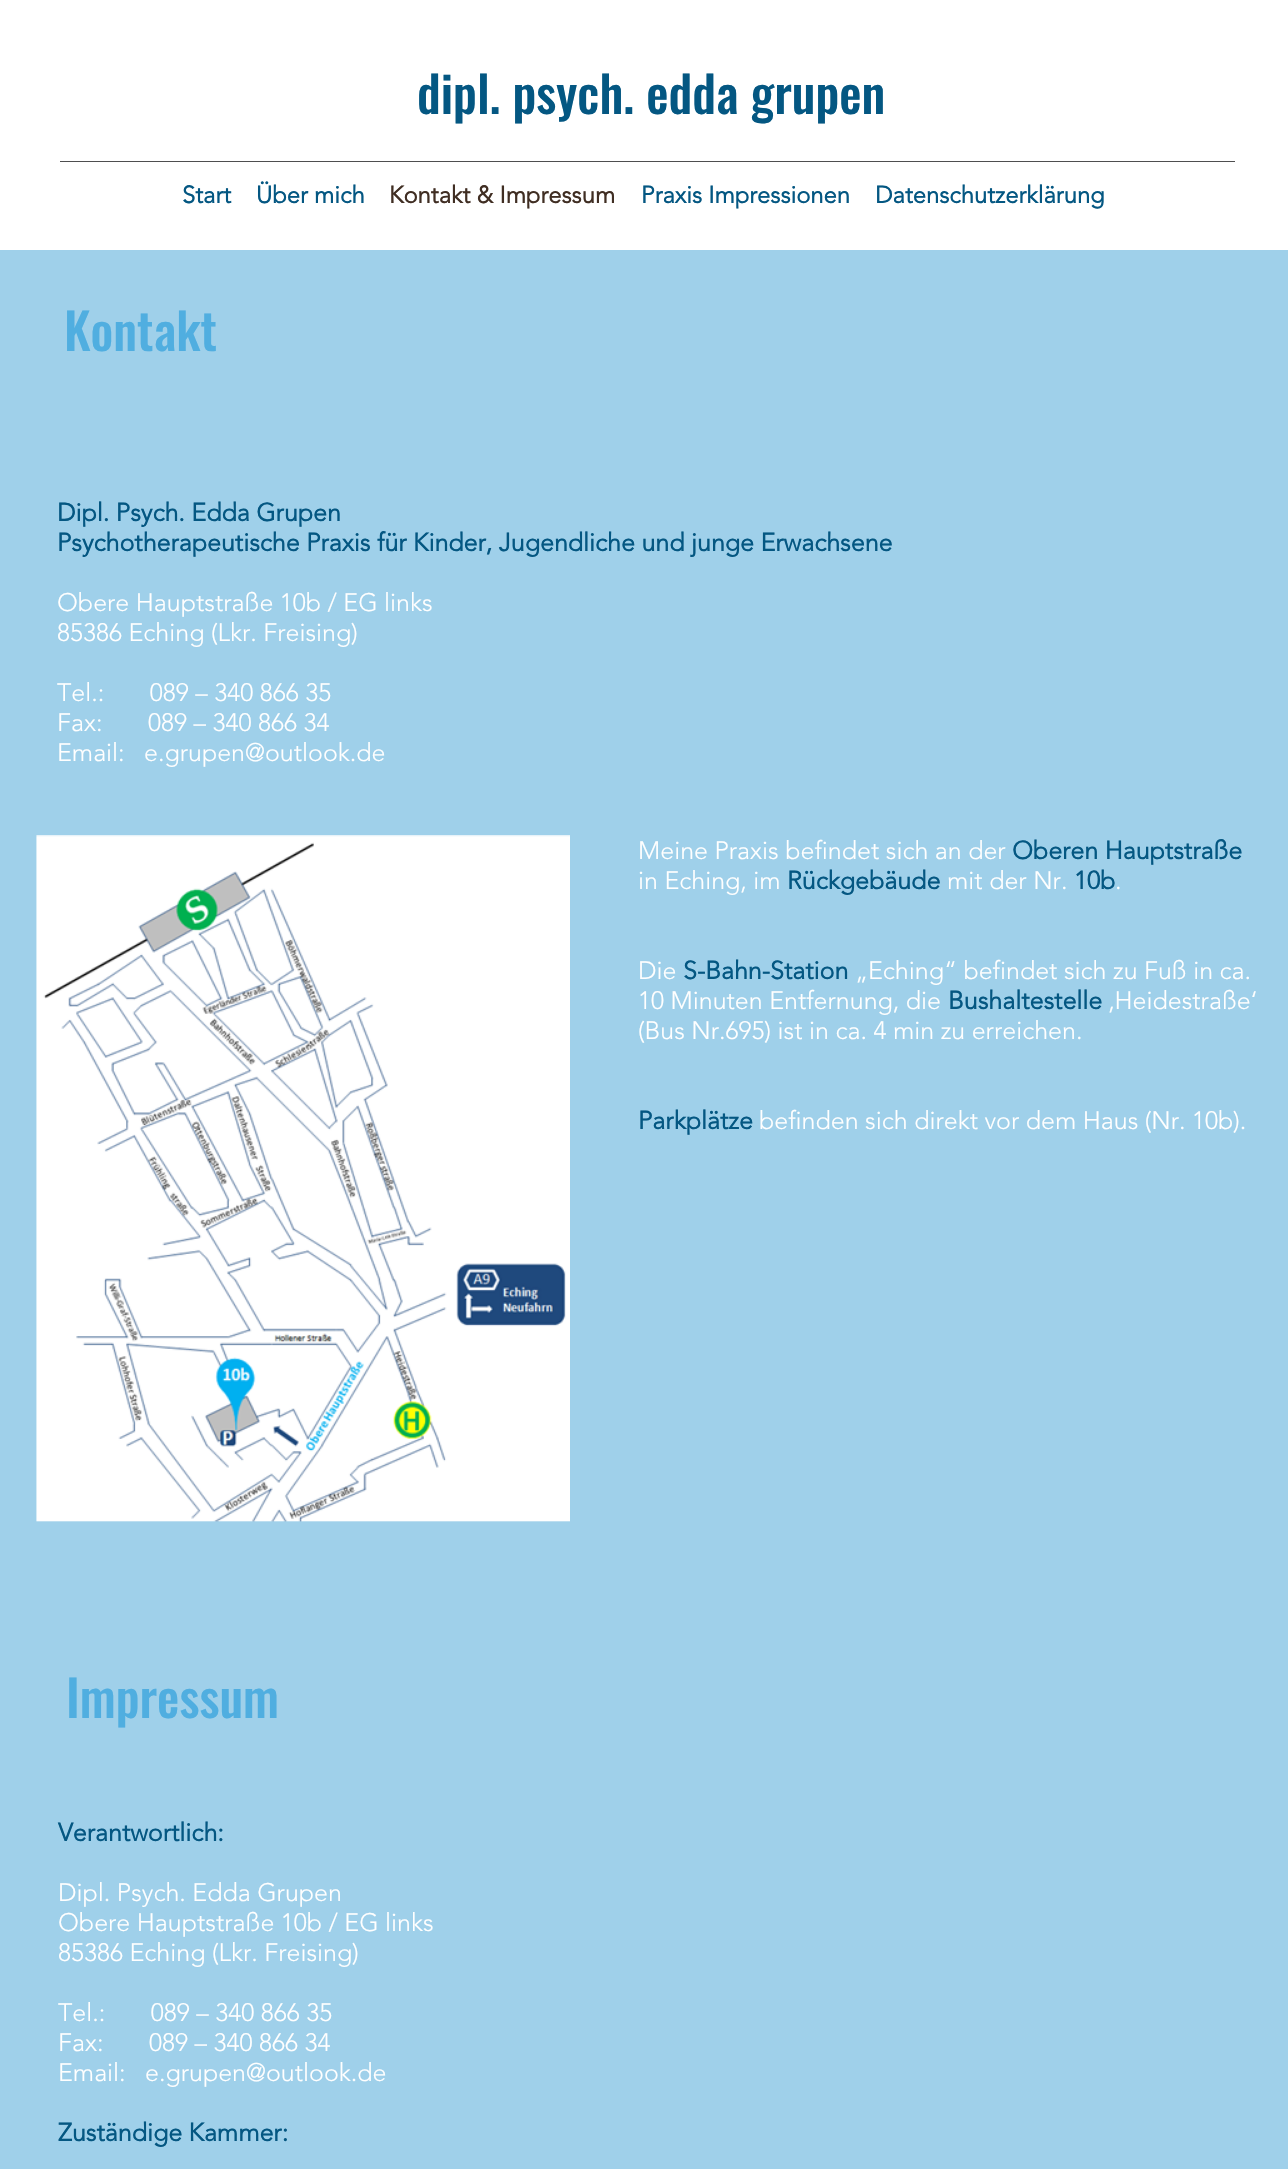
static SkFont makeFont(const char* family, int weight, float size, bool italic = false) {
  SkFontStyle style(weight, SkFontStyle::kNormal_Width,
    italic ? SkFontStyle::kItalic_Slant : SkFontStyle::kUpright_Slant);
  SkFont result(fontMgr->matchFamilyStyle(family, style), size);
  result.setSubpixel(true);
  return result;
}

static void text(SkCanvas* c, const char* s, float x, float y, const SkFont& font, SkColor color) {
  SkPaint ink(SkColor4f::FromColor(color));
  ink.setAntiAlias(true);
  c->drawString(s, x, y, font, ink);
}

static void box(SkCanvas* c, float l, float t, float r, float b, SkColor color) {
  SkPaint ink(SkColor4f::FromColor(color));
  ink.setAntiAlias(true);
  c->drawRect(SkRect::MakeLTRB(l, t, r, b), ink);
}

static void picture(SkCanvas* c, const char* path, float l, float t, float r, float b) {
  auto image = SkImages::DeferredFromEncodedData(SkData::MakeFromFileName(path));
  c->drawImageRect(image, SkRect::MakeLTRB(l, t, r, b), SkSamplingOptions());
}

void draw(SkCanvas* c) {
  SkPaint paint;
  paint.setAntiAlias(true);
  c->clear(0xffffffff);
  SkFont face1 = makeFont("Oswald", 500, 50);
  text(c, "dipl. psych. edda grupen", 417, 114, face1, 0xff045782);
  box(c, 60, 161, 1235, 162, 0xff4e4e4f);
  SkFont face2 = makeFont("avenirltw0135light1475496", 700, 23.75f);
  text(c, "Start", 182, 203, face2, 0xff045782);
  text(c, "Über mich", 256, 203, face2, 0xff045782);
  text(c, "Kontakt & Impressum", 389, 203, face2, 0xff402e23);
  text(c, "Praxis Impressionen", 641, 203, face2, 0xff045782);
  text(c, "Datenschutzerklärung", 875, 203, face2, 0xff045782);
  box(c, 0, 250, 1288, 2169, 0xff9fd0ea);
  text(c, "Kontakt", 64, 351, face1, 0xff50aee0);
  SkFont face3 = makeFont("avenirltw0135light1475496", 700, 25);
  text(c, "Dipl. Psych. Edda Grupen", 57, 521, face3, 0xff045782);
  text(c, "Psychotherapeutische Praxis für Kinder, Jugendliche und junge Erwachsene", 57, 551, face3, 0xff045782);
  SkFont face4 = makeFont("avenirltw0135light1475496", 300, 25);
  text(c, "Obere Hauptstraße 10b / EG links", 57, 611, face4, 0xffffffff);
  text(c, "85386 Eching (Lkr. Freising)", 57, 641, face4, 0xffffffff);
  text(c, "Tel.:       089 – 340 866 35", 57, 701, face4, 0xffffffff);
  text(c, "Fax:       089 – 340 866 34", 57, 731, face4, 0xffffffff);
  text(c, "Email:", 57, 761, face4, 0xffffffff);
  text(c, "e.grupen@outlook.de", 144, 761, face4, 0xffffffff);
  picture(c, "img_01.png", 36, 835, 570, 1522);
  text(c, "Meine Praxis befindet sich an der", 638, 859, face4, 0xffffffff);
  text(c, "Oberen Hauptstraße", 1012, 859, face3, 0xff045782);
  text(c, "in Eching, im", 638, 889, face4, 0xffffffff);
  text(c, "Rückgebäude", 787, 889, face3, 0xff045782);
  text(c, "mit der Nr.", 947, 889, face4, 0xffffffff);
  text(c, "10b", 1074, 889, face3, 0xff045782);
  text(c, ".", 1115, 889, face4, 0xffffffff);
  text(c, "Die", 638, 979, face4, 0xffffffff);
  text(c, "S-Bahn-Station", 683, 979, face3, 0xff045782);
  text(c, "„Eching“ befindet sich zu Fuß in ca.", 855, 979, face4, 0xffffffff);
  text(c, "10 Minuten Entfernung, die", 638, 1009, face4, 0xffffffff);
  text(c, "Bushaltestelle", 948, 1009, face3, 0xff045782);
  text(c, "‚Heidestraße‘", 1108, 1009, face4, 0xffffffff);
  text(c, "(Bus Nr.695) ist in ca. 4 min zu erreichen.", 638, 1039, face4, 0xffffffff);
  text(c, "Parkplätze", 638, 1129, face3, 0xff045782);
  text(c, "befinden sich direkt vor dem Haus (Nr. 10b).", 759, 1129, face4, 0xffffffff);
  text(c, "Impressum", 66, 1718, face1, 0xff50aee0);
  text(c, "Verantwortlich:", 58, 1841, face3, 0xff045782);
  text(c, "Dipl. Psych. Edda Grupen", 58, 1901, face4, 0xffffffff);
  text(c, "Obere Hauptstraße 10b / EG links", 58, 1931, face4, 0xffffffff);
  text(c, "85386 Eching (Lkr. Freising)", 58, 1961, face4, 0xffffffff);
  text(c, "Tel.:       089 – 340 866 35", 58, 2021, face4, 0xffffffff);
  text(c, "Fax:       089 – 340 866 34", 58, 2051, face4, 0xffffffff);
  text(c, "Email:", 58, 2081, face4, 0xffffffff);
  text(c, "e.grupen@outlook.de", 145, 2081, face4, 0xffffffff);
  text(c, "Zuständige Kammer:", 58, 2141, face3, 0xff045782);
}
